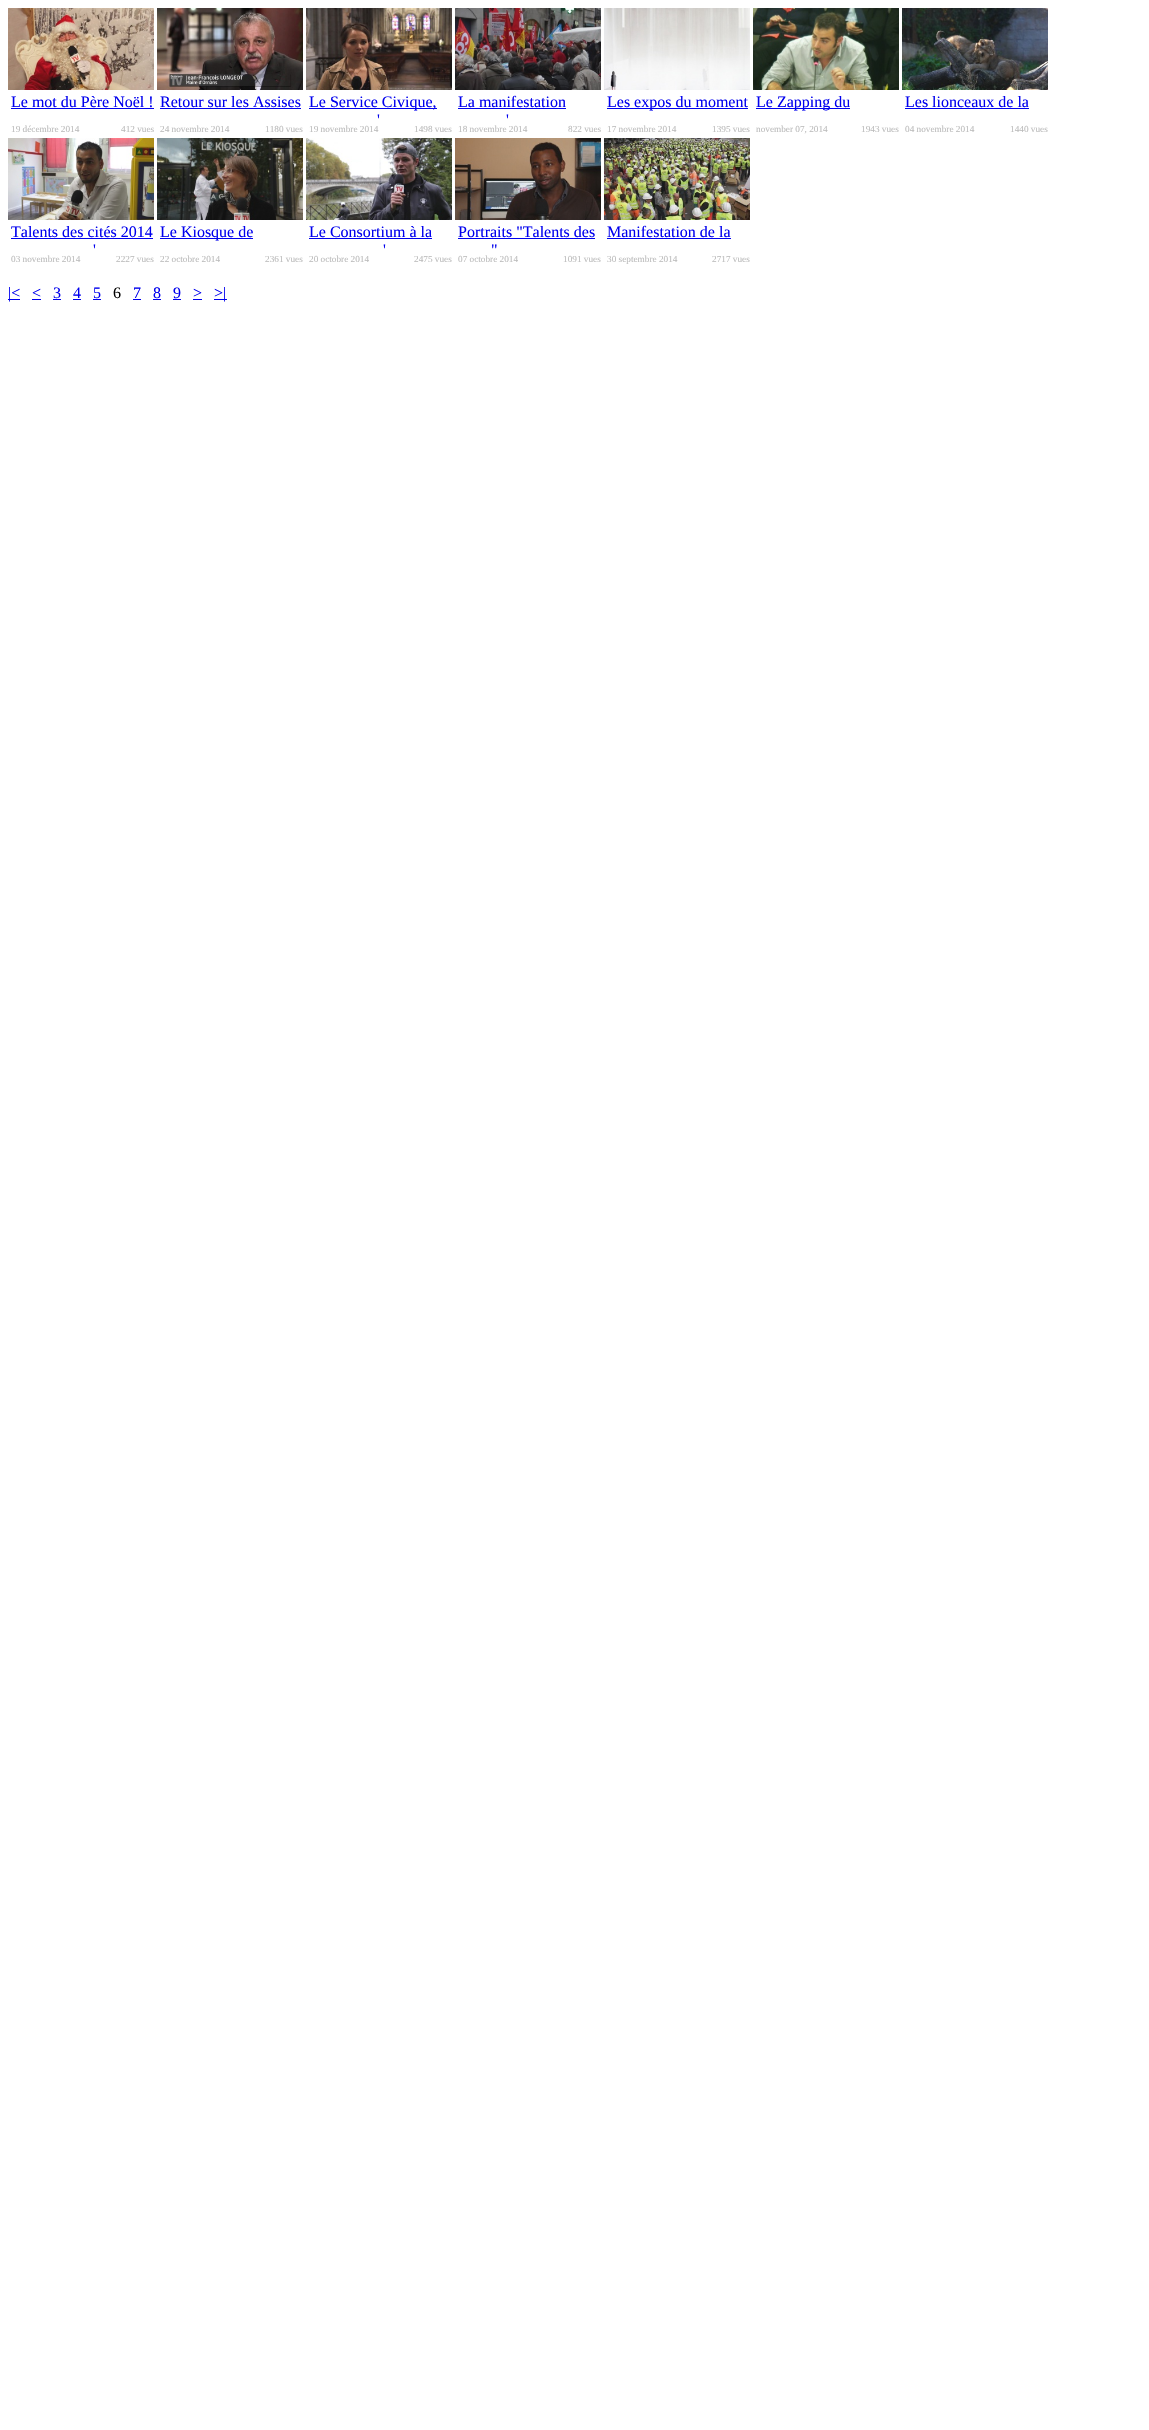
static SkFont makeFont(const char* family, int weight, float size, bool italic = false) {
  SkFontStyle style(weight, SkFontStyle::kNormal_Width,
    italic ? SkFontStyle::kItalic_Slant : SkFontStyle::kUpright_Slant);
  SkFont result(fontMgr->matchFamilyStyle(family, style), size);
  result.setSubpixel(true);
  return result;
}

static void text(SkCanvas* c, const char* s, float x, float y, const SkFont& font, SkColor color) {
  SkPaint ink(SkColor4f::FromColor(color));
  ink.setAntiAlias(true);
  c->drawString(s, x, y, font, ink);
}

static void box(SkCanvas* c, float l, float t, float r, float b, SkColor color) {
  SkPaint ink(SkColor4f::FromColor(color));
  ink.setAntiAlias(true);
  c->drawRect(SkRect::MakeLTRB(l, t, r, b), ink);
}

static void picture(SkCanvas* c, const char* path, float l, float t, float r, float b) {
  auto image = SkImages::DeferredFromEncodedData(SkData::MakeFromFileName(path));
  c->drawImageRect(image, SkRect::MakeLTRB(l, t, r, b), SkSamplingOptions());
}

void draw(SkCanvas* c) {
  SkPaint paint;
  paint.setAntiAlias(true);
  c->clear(0xffffffff);
  picture(c, "img_01.png", 8, 8, 154, 90);
  SkFont face1 = makeFont("Liberation Serif", 400, 16);
  text(c, "Le mot du Père Noël !", 11, 107, face1, 0xff0000ee);
  box(c, 11, 108, 154, 109, 0xff0000ee);
  SkFont face2 = makeFont("Liberation Serif", 400, 9.25f);
  text(c, "19 décembre 2014", 11, 132, face2, 0xffbbbbbb);
  text(c, "412 vues", 121, 132, face2, 0xffbbbbbb);
  picture(c, "img_02.png", 157, 8, 303, 90);
  text(c, "Retour sur les Assises", 160, 107, face1, 0xff0000ee);
  box(c, 160, 108, 301, 109, 0xff0000ee);
  text(c, "24 novembre 2014", 160, 132, face2, 0xffbbbbbb);
  text(c, "1180 vues", 265, 132, face2, 0xffbbbbbb);
  picture(c, "img_03.png", 306, 8, 452, 90);
  box(c, 309, 108, 437, 109, 0xff0000ee);
  text(c, "Le Service Civique,", 309, 107, face1, 0xff0000ee);
  text(c, "'", 377, 125, face1, 0xff0000ee);
  text(c, "19 novembre 2014", 309, 132, face2, 0xffbbbbbb);
  text(c, "1498 vues", 414, 132, face2, 0xffbbbbbb);
  picture(c, "img_04.png", 455, 8, 601, 90);
  text(c, "La manifestation", 458, 107, face1, 0xff0000ee);
  box(c, 458, 108, 566, 109, 0xff0000ee);
  text(c, "'", 506, 125, face1, 0xff0000ee);
  text(c, "18 novembre 2014", 458, 132, face2, 0xffbbbbbb);
  text(c, "822 vues", 568, 132, face2, 0xffbbbbbb);
  picture(c, "img_05.png", 604, 8, 750, 90);
  box(c, 607, 108, 748, 109, 0xff0000ee);
  text(c, "Les expos du moment", 607, 107, face1, 0xff0000ee);
  text(c, "17 novembre 2014", 607, 132, face2, 0xffbbbbbb);
  text(c, "1395 vues", 712, 132, face2, 0xffbbbbbb);
  picture(c, "img_06.png", 753, 8, 899, 90);
  box(c, 756, 108, 850, 109, 0xff0000ee);
  text(c, "Le Zapping du", 756, 107, face1, 0xff0000ee);
  text(c, "november 07, 2014", 756, 132, face2, 0xffbbbbbb);
  text(c, "1943 vues", 861, 132, face2, 0xffbbbbbb);
  picture(c, "img_07.png", 902, 8, 1048, 90);
  text(c, "Les lionceaux de la", 905, 107, face1, 0xff0000ee);
  box(c, 905, 108, 1029, 109, 0xff0000ee);
  text(c, "04 novembre 2014", 905, 132, face2, 0xffbbbbbb);
  text(c, "1440 vues", 1010, 132, face2, 0xffbbbbbb);
  picture(c, "img_08.png", 8, 138, 154, 220);
  text(c, "Talents des cités 2014", 11, 237, face1, 0xff0000ee);
  box(c, 11, 238, 153, 239, 0xff0000ee);
  text(c, "'", 93, 255, face1, 0xff0000ee);
  text(c, "03 novembre 2014", 11, 262, face2, 0xffbbbbbb);
  text(c, "2227 vues", 116, 262, face2, 0xffbbbbbb);
  picture(c, "img_09.png", 157, 138, 303, 220);
  box(c, 160, 238, 253, 239, 0xff0000ee);
  text(c, "Le Kiosque de", 160, 237, face1, 0xff0000ee);
  text(c, "22 octobre 2014", 160, 262, face2, 0xffbbbbbb);
  text(c, "2361 vues", 265, 262, face2, 0xffbbbbbb);
  picture(c, "img_10.png", 306, 138, 452, 220);
  text(c, "Le Consortium à la", 309, 237, face1, 0xff0000ee);
  box(c, 309, 238, 432, 239, 0xff0000ee);
  text(c, "'", 383, 255, face1, 0xff0000ee);
  text(c, "20 octobre 2014", 309, 262, face2, 0xffbbbbbb);
  text(c, "2475 vues", 414, 262, face2, 0xffbbbbbb);
  picture(c, "img_11.png", 455, 138, 601, 220);
  text(c, "Portraits \"Talents des", 458, 237, face1, 0xff0000ee);
  box(c, 458, 238, 595, 239, 0xff0000ee);
  text(c, "\"", 491, 255, face1, 0xff0000ee);
  text(c, "07 octobre 2014", 458, 262, face2, 0xffbbbbbb);
  text(c, "1091 vues", 563, 262, face2, 0xffbbbbbb);
  picture(c, "img_12.png", 604, 138, 750, 220);
  text(c, "Manifestation de la", 607, 237, face1, 0xff0000ee);
  box(c, 607, 238, 731, 239, 0xff0000ee);
  text(c, "30 septembre 2014", 607, 262, face2, 0xffbbbbbb);
  text(c, "2717 vues", 712, 262, face2, 0xffbbbbbb);
  box(c, 8, 299, 20, 300, 0xff0000ee);
  text(c, "|<", 8, 298, face1, 0xff0000ee);
  text(c, "<", 32, 298, face1, 0xff0000ee);
  box(c, 32, 299, 41, 300, 0xff0000ee);
  text(c, "3", 53, 298, face1, 0xff0000ee);
  box(c, 53, 299, 61, 300, 0xff0000ee);
  text(c, "4", 73, 298, face1, 0xff0000ee);
  box(c, 73, 299, 81, 300, 0xff0000ee);
  text(c, "5", 93, 298, face1, 0xff0000ee);
  box(c, 93, 299, 101, 300, 0xff0000ee);
  text(c, "6", 113, 298, face1, 0xff000000);
  text(c, "7", 133, 298, face1, 0xff0000ee);
  box(c, 133, 299, 141, 300, 0xff0000ee);
  text(c, "8", 153, 298, face1, 0xff0000ee);
  box(c, 153, 299, 161, 300, 0xff0000ee);
  text(c, "9", 173, 298, face1, 0xff0000ee);
  box(c, 173, 299, 181, 300, 0xff0000ee);
  text(c, ">", 193, 298, face1, 0xff0000ee);
  box(c, 193, 299, 202, 300, 0xff0000ee);
  box(c, 214, 299, 227, 300, 0xff0000ee);
  text(c, ">|", 214, 298, face1, 0xff0000ee);
}
